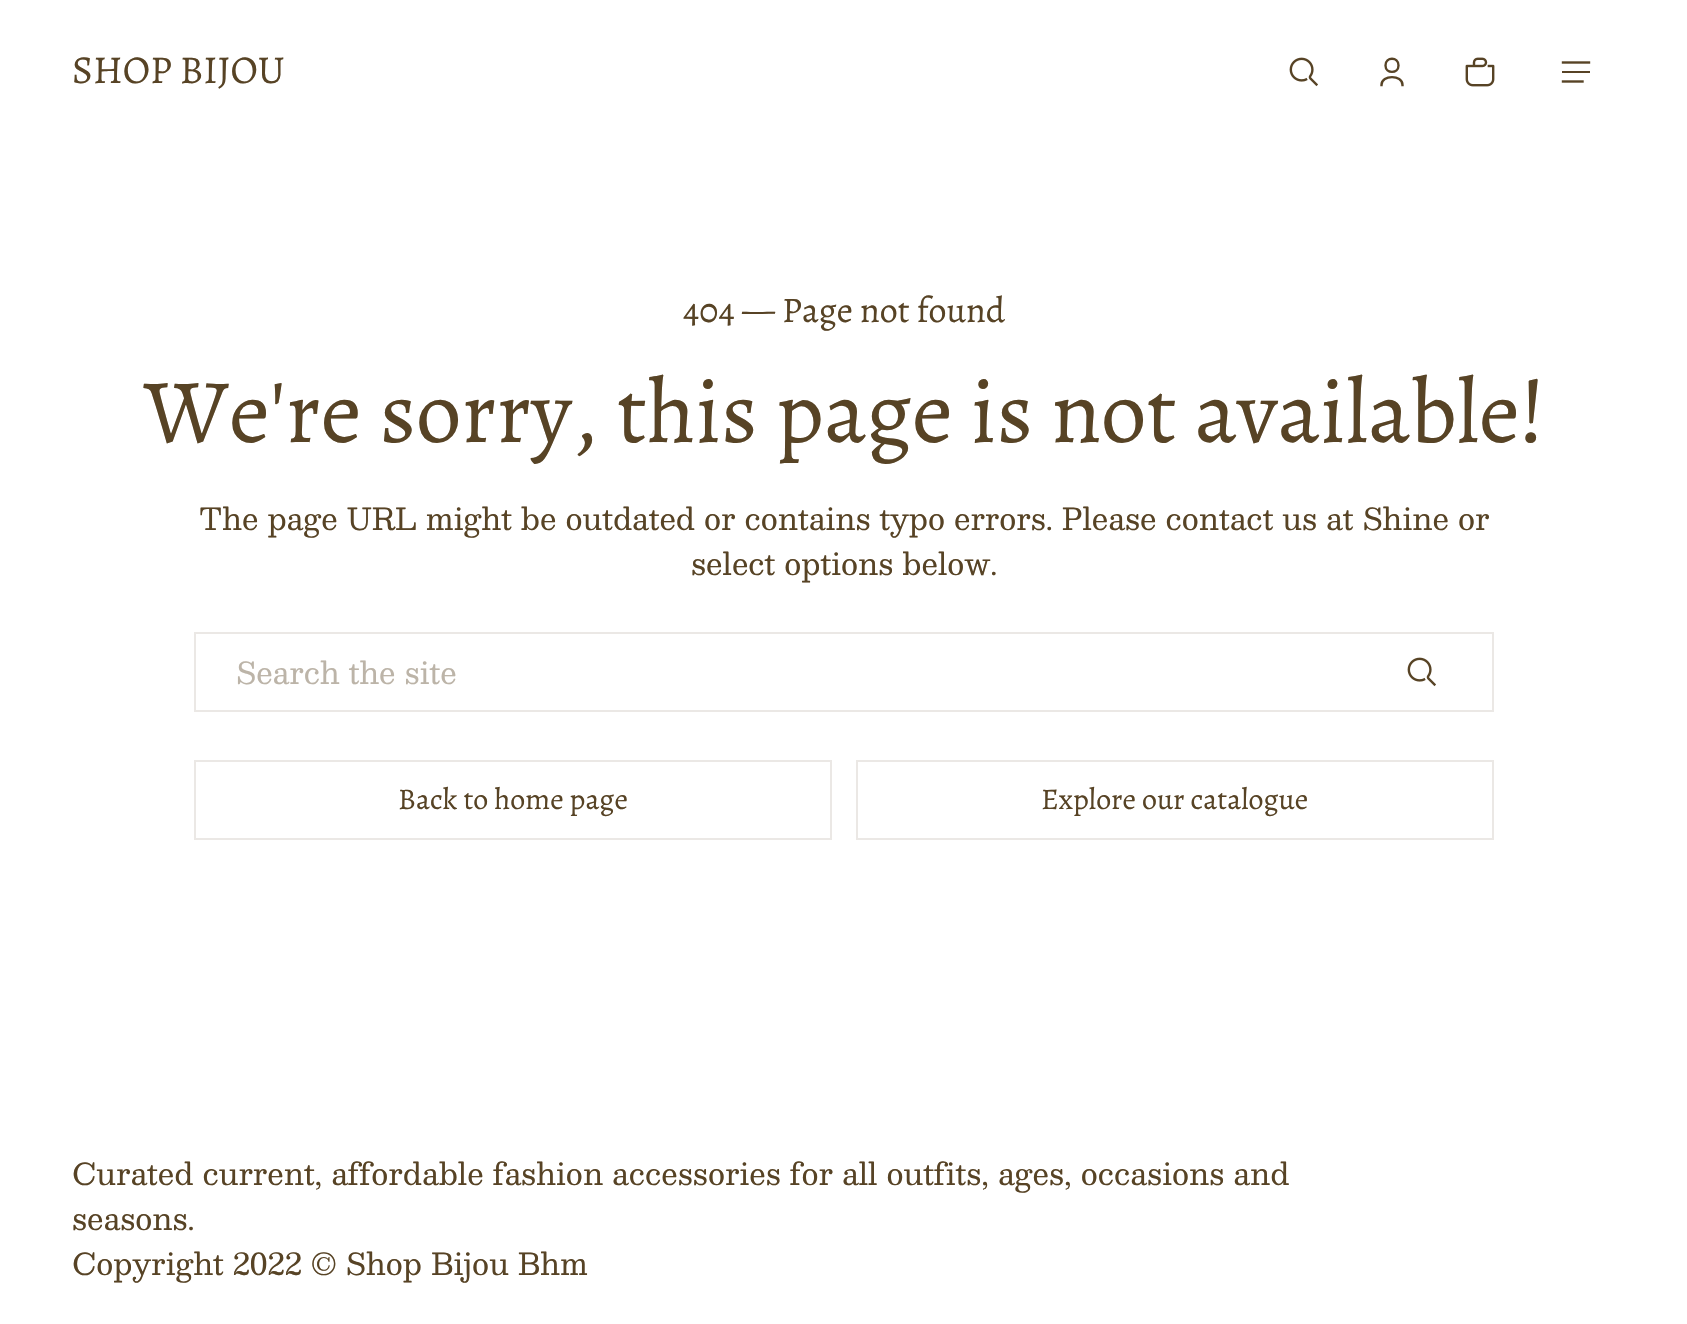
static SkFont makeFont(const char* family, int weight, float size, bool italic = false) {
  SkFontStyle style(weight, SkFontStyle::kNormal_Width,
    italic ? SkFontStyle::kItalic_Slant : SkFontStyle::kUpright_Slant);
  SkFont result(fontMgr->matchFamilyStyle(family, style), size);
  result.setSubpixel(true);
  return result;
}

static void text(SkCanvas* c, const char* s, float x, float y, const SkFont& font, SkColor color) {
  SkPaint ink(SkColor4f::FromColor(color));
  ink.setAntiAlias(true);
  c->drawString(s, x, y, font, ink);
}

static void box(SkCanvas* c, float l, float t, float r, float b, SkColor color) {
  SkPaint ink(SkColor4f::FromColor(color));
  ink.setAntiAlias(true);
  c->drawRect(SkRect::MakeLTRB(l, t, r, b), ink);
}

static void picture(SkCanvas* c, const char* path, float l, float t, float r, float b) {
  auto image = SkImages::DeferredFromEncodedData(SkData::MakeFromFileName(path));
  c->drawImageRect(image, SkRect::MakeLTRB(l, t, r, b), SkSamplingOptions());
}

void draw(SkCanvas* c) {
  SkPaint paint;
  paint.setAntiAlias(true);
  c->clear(0xffffffff);
  SkFont face1 = makeFont("Alegreya", 400, 39.5f);
  text(c, "SHOP BIJOU", 72, 83, face1, 0xff574325);
  picture(c, "img_01.png", 1289, 57, 1318, 87);
  paint.setStyle(SkPaint::kStroke_Style);
  paint.setStrokeWidth(2.4f);
  paint.setStrokeCap(SkPaint::kSquare_Cap);
  paint.setStrokeJoin(SkPaint::kRound_Join);
  paint.setColor(0xff574325);
  c->drawPath(SkPathBuilder().moveTo(1381.5f, 85).cubicTo(1381.5f, 74.5f, 1402.5f, 74.5f, 1402.5f, 85).detach(), paint);
  paint.setStrokeCap(SkPaint::kRound_Cap);
  c->drawPath(SkPathBuilder().moveTo(1398.5f, 65.5f).cubicTo(1398.5f, 74, 1385.5f, 74, 1385.5f, 65.5f).cubicTo(1385.5f, 56.5f, 1398.5f, 56.5f, 1398.5f, 65.5f).close().detach(), paint);
  picture(c, "img_02.png", 1465, 57, 1495, 87);
  paint.setStrokeCap(SkPaint::kSquare_Cap);
  c->drawPath(SkPathBuilder().moveTo(1563, 62.5f).lineTo(1589, 62.5f).detach(), paint);
  box(c, 1562, 71, 1590, 73, 0xff574325);
  c->drawPath(SkPathBuilder().moveTo(1563, 81.5f).lineTo(1582.5f, 81.5f).detach(), paint);
  SkFont face2 = makeFont("Alegreya", 400, 36);
  text(c, "404 — Page not found", 683, 322, face2, 0xff574325);
  SkFont face3 = makeFont("Alegreya", 400, 91.1f);
  text(c, "We're sorry, this page is not available!", 144, 442, face3, 0xff574325);
  SkFont face4 = makeFont("Besley", 400, 30);
  text(c, "The page URL might be outdated or contains typo errors. Please contact us at Shine or", 199, 530, face4, 0xff574325);
  text(c, "select options below.", 691, 575, face4, 0xff574325);
  paint.setStrokeWidth(2);
  paint.setStrokeCap(SkPaint::kButt_Cap);
  paint.setStrokeJoin(SkPaint::kMiter_Join);
  paint.setColor(0xffebe8e5);
  c->drawRect(SkRect::MakeLTRB(195, 633, 1493, 711), paint);
  text(c, "Search the site", 236, 684, face4, 0xffbcb4a8);
  picture(c, "img_01.png", 1407, 657, 1436, 687);
  c->drawRect(SkRect::MakeLTRB(195, 761, 831, 839), paint);
  SkFont face5 = makeFont("Alegreya", 400, 30);
  text(c, "Back to home page", 398, 809, face5, 0xff574325);
  c->drawRect(SkRect::MakeLTRB(857, 761, 1493, 839), paint);
  text(c, "Explore our catalogue", 1041, 809, face5, 0xff574325);
  text(c, "Curated current, affordable fashion accessories for all outfits, ages, occasions and", 72, 1185, face4, 0xff574325);
  text(c, "seasons.", 72, 1230, face4, 0xff574325);
  text(c, "Copyright 2022 © Shop Bijou Bhm", 72, 1275, face4, 0xff574325);
}
